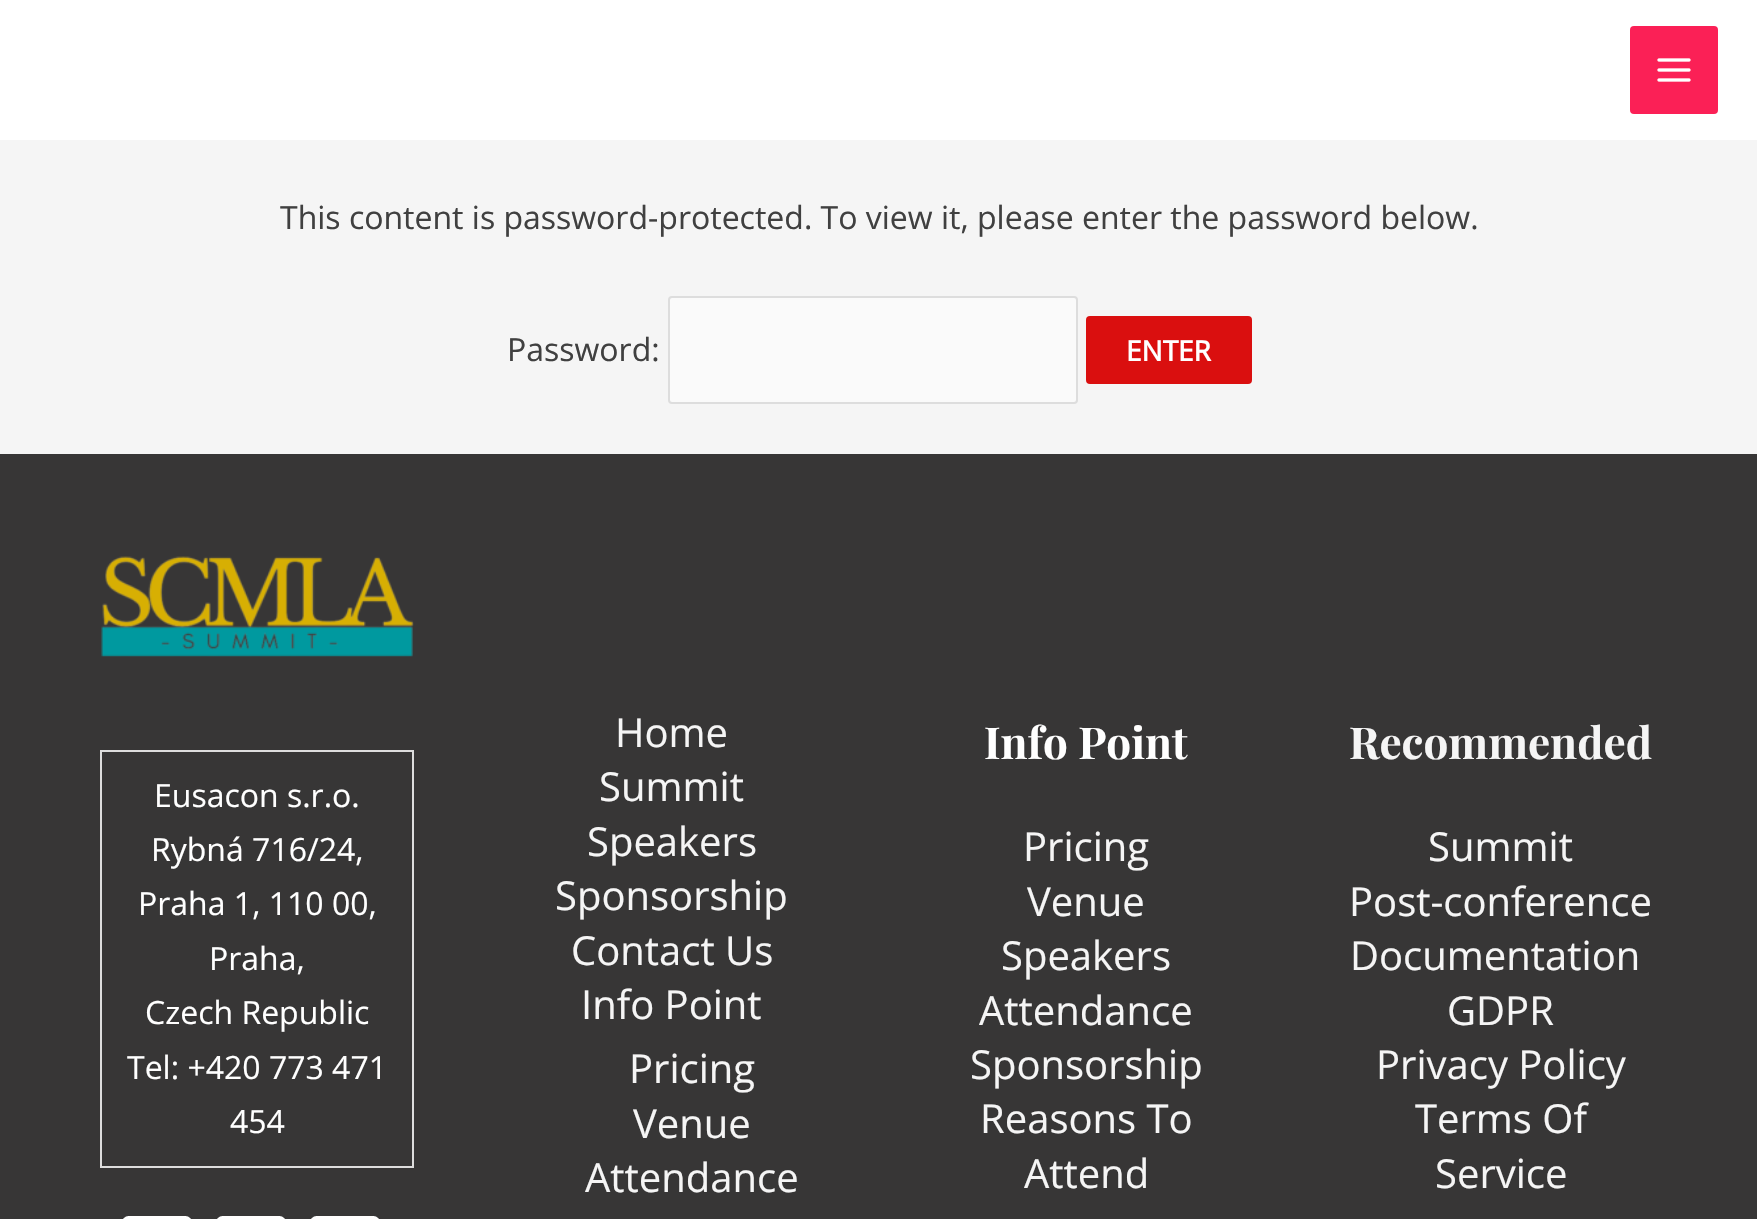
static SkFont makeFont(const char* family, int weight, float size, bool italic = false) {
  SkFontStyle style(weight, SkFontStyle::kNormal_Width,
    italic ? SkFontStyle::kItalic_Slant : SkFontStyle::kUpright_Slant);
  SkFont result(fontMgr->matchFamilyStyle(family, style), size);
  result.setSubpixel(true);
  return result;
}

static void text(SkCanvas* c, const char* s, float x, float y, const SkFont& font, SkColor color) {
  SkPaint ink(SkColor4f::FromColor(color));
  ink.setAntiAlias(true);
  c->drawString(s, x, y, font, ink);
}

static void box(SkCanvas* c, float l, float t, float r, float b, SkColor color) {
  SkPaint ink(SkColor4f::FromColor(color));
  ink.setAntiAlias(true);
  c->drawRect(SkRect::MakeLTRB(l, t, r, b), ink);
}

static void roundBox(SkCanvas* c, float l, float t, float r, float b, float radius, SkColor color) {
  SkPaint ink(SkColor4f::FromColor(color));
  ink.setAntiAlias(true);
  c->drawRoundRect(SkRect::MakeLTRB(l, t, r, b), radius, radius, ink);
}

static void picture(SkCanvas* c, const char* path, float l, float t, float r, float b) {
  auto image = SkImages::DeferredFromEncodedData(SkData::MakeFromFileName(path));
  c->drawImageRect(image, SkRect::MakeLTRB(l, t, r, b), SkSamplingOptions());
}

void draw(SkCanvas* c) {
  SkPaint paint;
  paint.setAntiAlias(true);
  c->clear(0xfff5f5f5);
  box(c, 0, 0, 1757, 140, 0xffffffff);
  roundBox(c, 1630, 26, 1718, 114, 4, 0xfffb2056);
  picture(c, "img_01.png", 1657, 58, 1691, 82);
  SkFont face1 = makeFont("Open Sans", 400, 32);
  text(c, "This content is password-protected. To view it, please enter the password below.", 280, 229, face1, 0xff404040);
  text(c, "Password:", 507, 361, face1, 0xff404040);
  paint.setColor(0xfffafafa);
  c->drawRoundRect(SkRect::MakeLTRB(669, 297, 1077, 403), 3, 3, paint);
  paint.setStyle(SkPaint::kStroke_Style);
  paint.setStrokeWidth(2);
  paint.setColor(0xffdddddd);
  c->drawRoundRect(SkRect::MakeLTRB(669, 297, 1077, 403), 3, 3, paint);
  roundBox(c, 1086, 316, 1252, 384, 4, 0xffda0f0f);
  SkFont face2 = makeFont("Open Sans", 700, 28);
  text(c, "ENTER", 1126, 361, face2, 0xffffffff);
  box(c, 0, 454, 1757, 1219, 0xff373636);
  picture(c, "img_02.png", 101, 556, 414, 657);
  box(c, 100, 750, 414, 752, 0xffdddddd);
  box(c, 100, 750, 102, 1168, 0xffdddddd);
  box(c, 412, 752, 414, 1168, 0xffdddddd);
  box(c, 102, 1166, 414, 1168, 0xffdddddd);
  text(c, "Eusacon s.r.o.", 154, 807, face1, 0xffffffff);
  text(c, "Rybná 716/24,", 151, 861, face1, 0xffffffff);
  text(c, "Praha 1, 110 00,", 138, 915, face1, 0xffffffff);
  text(c, "Praha,", 209, 970, face1, 0xffffffff);
  text(c, "Czech Republic", 145, 1024, face1, 0xffffffff);
  text(c, "Tel: +420 773 471", 127, 1079, face1, 0xffffffff);
  text(c, "454", 230, 1133, face1, 0xffffffff);
  roundBox(c, 122, 1216, 192, 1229, 10, 0xffffffff);
  roundBox(c, 216, 1216, 286, 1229, 10, 0xffffffff);
  roundBox(c, 310, 1216, 380, 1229, 10, 0xffffffff);
  SkFont face3 = makeFont("Open Sans", 400, 40);
  text(c, "Home", 615, 747, face3, 0xfff5f5f5);
  text(c, "Summit", 599, 801, face3, 0xfff5f5f5);
  text(c, "Speakers", 587, 856, face3, 0xfff5f5f5);
  text(c, "Sponsorship", 555, 910, face3, 0xfff5f5f5);
  text(c, "Contact Us", 571, 965, face3, 0xfff5f5f5);
  text(c, "Info Point", 581, 1019, face3, 0xfff5f5f5);
  text(c, "Pricing", 629, 1083, face3, 0xfff5f5f5);
  text(c, "Venue", 633, 1138, face3, 0xfff5f5f5);
  text(c, "Attendance", 585, 1192, face3, 0xfff5f5f5);
  SkFont face4 = makeFont("Playfair Display", 700, 44);
  text(c, "Info Point", 984, 759, face4, 0xffffffff);
  text(c, "Pricing", 1023, 861, face3, 0xfff5f5f5);
  text(c, "Venue", 1027, 916, face3, 0xfff5f5f5);
  text(c, "Speakers", 1001, 970, face3, 0xfff5f5f5);
  text(c, "Attendance", 979, 1025, face3, 0xfff5f5f5);
  text(c, "Sponsorship", 970, 1079, face3, 0xfff5f5f5);
  text(c, "Reasons To", 980, 1133, face3, 0xfff5f5f5);
  text(c, "Attend", 1024, 1188, face3, 0xfff5f5f5);
  text(c, "Recommended", 1349, 759, face4, 0xfff5f5f5);
  text(c, "Summit", 1428, 861, face3, 0xfff5f5f5);
  text(c, "Post-conference", 1349, 916, face3, 0xfff5f5f5);
  text(c, "Documentation", 1350, 970, face3, 0xfff5f5f5);
  text(c, "GDPR", 1447, 1025, face3, 0xfff5f5f5);
  text(c, "Privacy Policy", 1376, 1079, face3, 0xfff5f5f5);
  text(c, "Terms Of", 1415, 1133, face3, 0xfff5f5f5);
  text(c, "Service", 1435, 1188, face3, 0xfff5f5f5);
}
